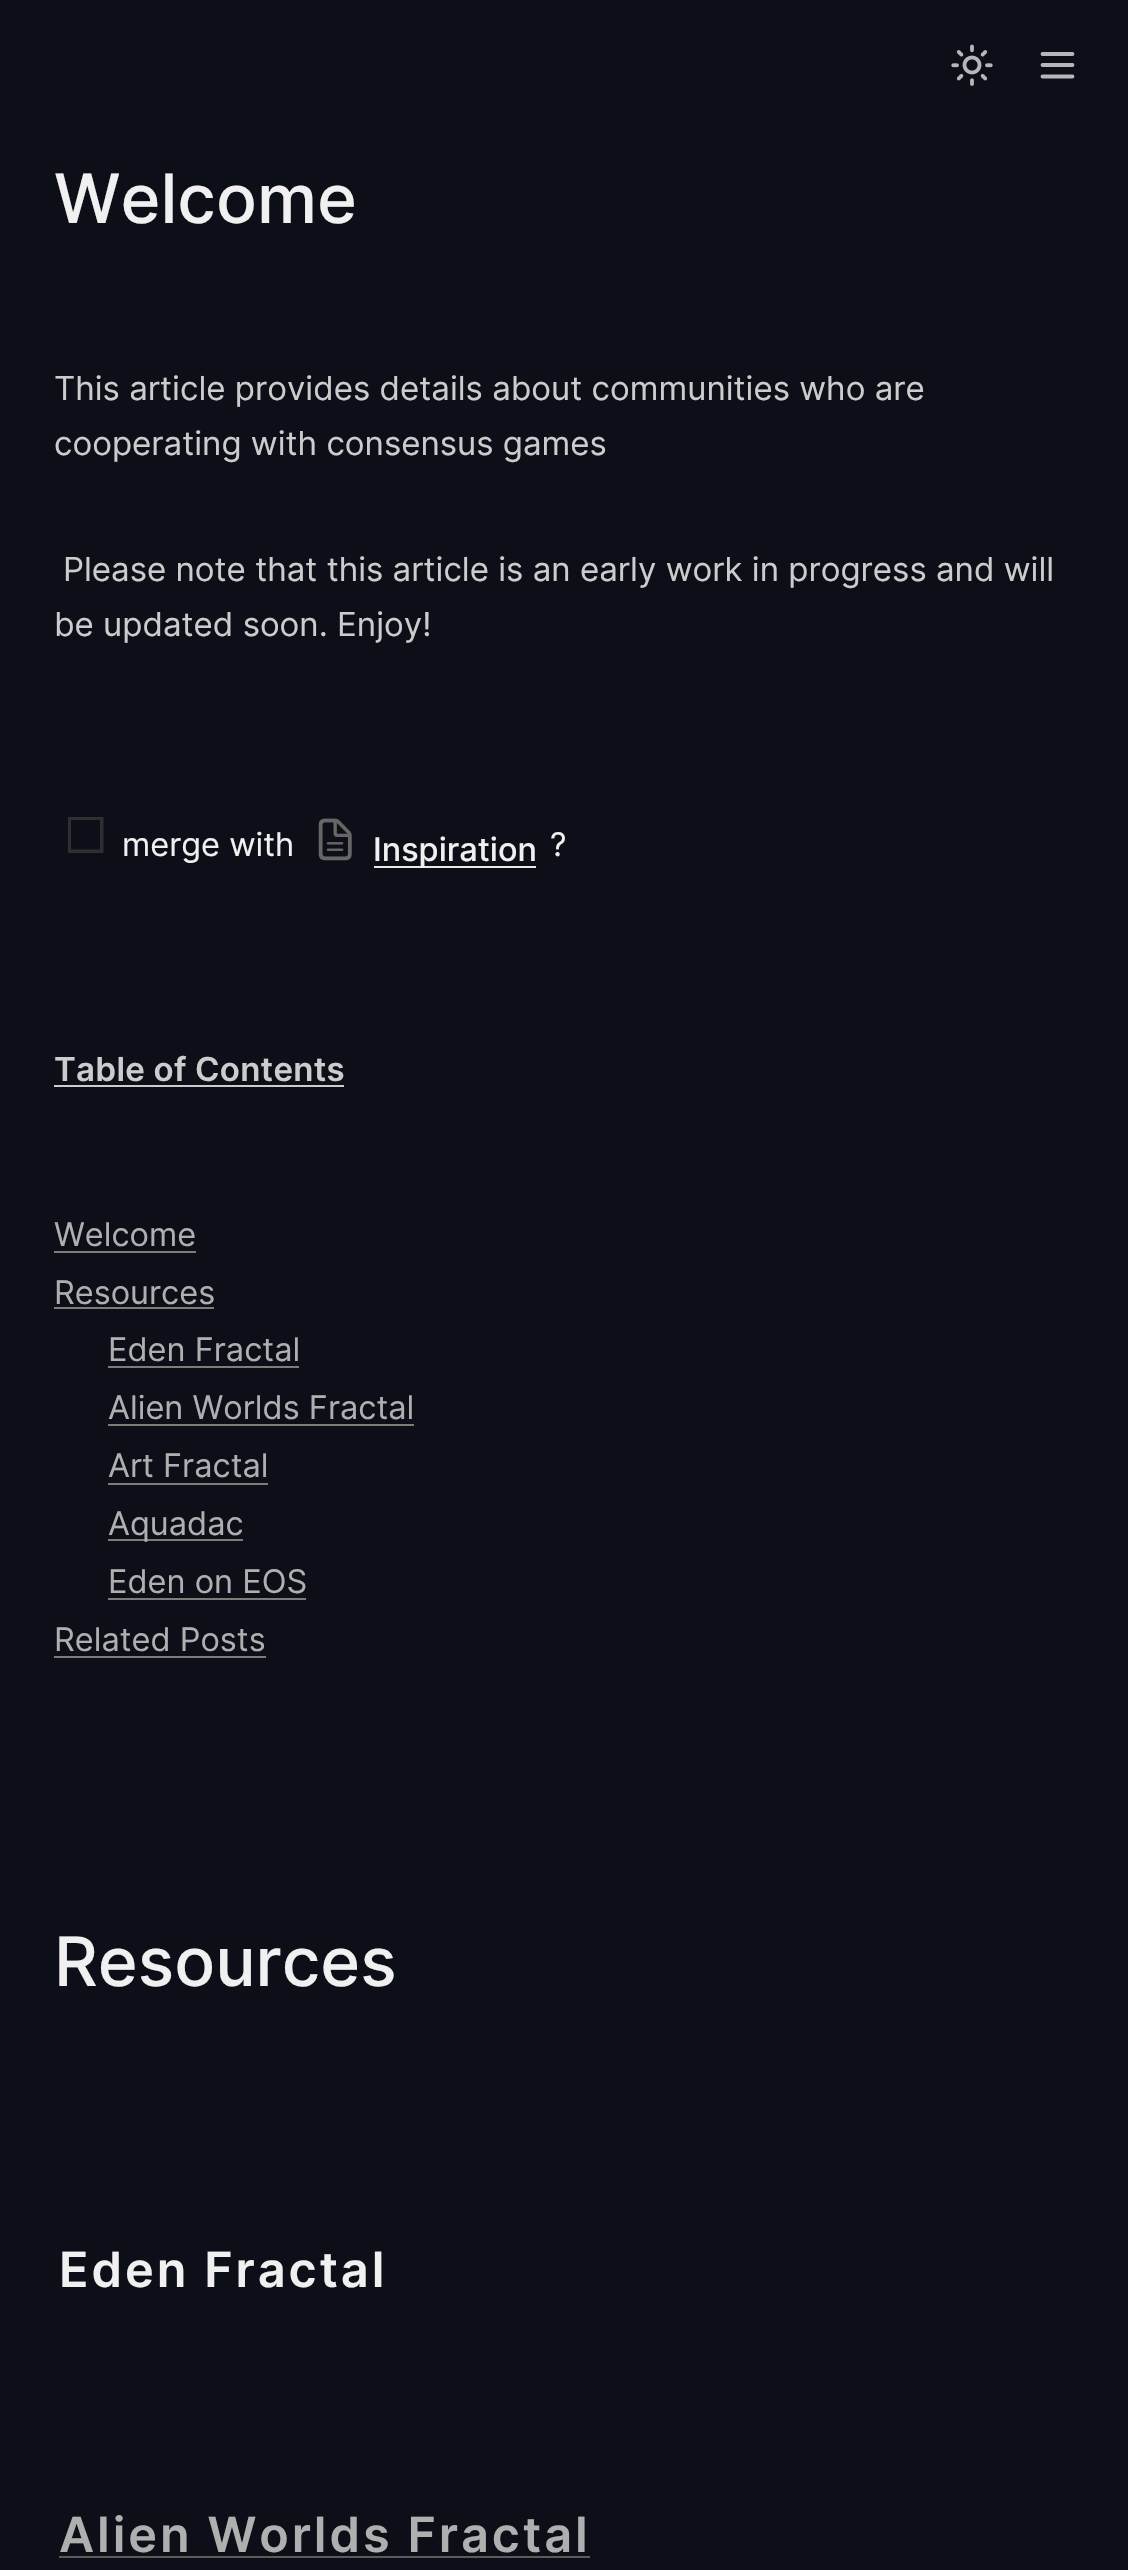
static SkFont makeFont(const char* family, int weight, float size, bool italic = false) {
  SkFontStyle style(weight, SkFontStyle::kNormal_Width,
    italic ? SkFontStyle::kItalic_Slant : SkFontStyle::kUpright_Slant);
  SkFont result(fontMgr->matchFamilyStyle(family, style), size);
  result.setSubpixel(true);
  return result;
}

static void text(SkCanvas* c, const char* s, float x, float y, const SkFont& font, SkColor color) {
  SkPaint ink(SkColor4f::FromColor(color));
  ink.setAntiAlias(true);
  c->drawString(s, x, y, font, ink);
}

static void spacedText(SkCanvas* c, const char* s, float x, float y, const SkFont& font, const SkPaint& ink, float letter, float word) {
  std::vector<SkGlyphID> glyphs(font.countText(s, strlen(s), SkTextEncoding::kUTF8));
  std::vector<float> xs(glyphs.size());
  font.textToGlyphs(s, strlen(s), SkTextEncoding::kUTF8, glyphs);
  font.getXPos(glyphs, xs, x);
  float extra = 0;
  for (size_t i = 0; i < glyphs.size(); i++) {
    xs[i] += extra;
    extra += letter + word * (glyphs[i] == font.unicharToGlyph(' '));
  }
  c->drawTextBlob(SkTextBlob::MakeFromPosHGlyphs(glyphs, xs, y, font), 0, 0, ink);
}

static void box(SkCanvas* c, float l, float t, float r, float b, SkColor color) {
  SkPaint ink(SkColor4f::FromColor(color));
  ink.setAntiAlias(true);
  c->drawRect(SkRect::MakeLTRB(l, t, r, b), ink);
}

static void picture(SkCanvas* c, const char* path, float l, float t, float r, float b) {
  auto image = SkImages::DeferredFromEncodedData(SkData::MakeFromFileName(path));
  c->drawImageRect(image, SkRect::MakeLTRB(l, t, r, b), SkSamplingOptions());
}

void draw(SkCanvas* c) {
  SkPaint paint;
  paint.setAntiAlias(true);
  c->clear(0xff0c0f18);
  picture(c, "img_01.png", 951, 44, 993, 86);
  paint.setStyle(SkPaint::kStroke_Style);
  paint.setStrokeWidth(3.8f);
  paint.setStrokeCap(SkPaint::kRound_Cap);
  paint.setStrokeJoin(SkPaint::kRound_Join);
  paint.setColor(0xffb6b7ba);
  c->drawPath(SkPathBuilder().moveTo(1042.5f, 65).lineTo(1072.5f, 65).moveTo(1042.5f, 54).lineTo(1072.5f, 54).moveTo(1042.5f, 76.5f).lineTo(1072.5f, 76.5f).detach(), paint);
  SkFont face1 = makeFont("Inter", 500, 68);
  text(c, "Welcome", 54, 223, face1, 0xfff0f0f0);
  SkFont face2 = makeFont("Inter", 400, 33.05f);
  text(c, "This article provides details about communities who are", 54, 400, face2, 0xffcccccc);
  text(c, "cooperating with consensus games", 54, 455, face2, 0xffcccccc);
  text(c, "Please note that this article is an early work in progress and will", 63, 581, face2, 0xffcccccc);
  text(c, "be updated soon. Enjoy!", 54, 636, face2, 0xffcccccc);
  c->save();
  c->clipRect(SkRect::MakeLTRB(68, 817, 104, 853));
  paint.setStyle(SkPaint::kFill_Style);
  paint.setColor(0xff2f2f2f);
  c->drawPath(SkPathBuilder().moveTo(71, 820).lineTo(71, 849.5f).lineTo(100, 849.5f).lineTo(100, 820).close().moveTo(67.5f, 817).lineTo(103.5f, 817).lineTo(103.5f, 853).lineTo(67.5f, 853).close().detach(), paint);
  c->restore();
  SkFont face3 = makeFont("Inter", 400, 32.5f);
  text(c, "merge with", 122, 856, face3, 0xfff0f0f0);
  picture(c, "img_02.png", 318, 818, 352, 861);
  box(c, 374, 866, 536, 868, 0xffe9e9e7);
  SkFont face4 = makeFont("Inter", 500, 32.5f);
  text(c, "Inspiration", 373, 861, face4, 0xfff0f0f0);
  text(c, "?", 550, 856, face3, 0xfff0f0f0);
  SkFont face5 = makeFont("Inter", 600, 33.05f);
  paint.setColor(0xffcccccc);
  spacedText(c, "Table of Contents", 54, 1081, face5, paint, 0.25f, 0);
  box(c, 54, 1085, 344, 1087, 0xffcccccc);
  text(c, "Welcome", 54, 1246, face3, 0xffaeafaf);
  box(c, 54, 1251, 196, 1253, 0xff7d7c78);
  text(c, "Resources", 54, 1304, face3, 0xffaeafaf);
  box(c, 54, 1307, 214, 1309, 0xff7d7c78);
  text(c, "Eden Fractal", 108, 1361, face3, 0xffaeafaf);
  box(c, 108, 1366, 299, 1368, 0xff7d7c78);
  text(c, "Alien Worlds Fractal", 108, 1419, face3, 0xffaeafaf);
  box(c, 108, 1424, 414, 1426, 0xff7d7c78);
  text(c, "Art Fractal", 108, 1477, face3, 0xffaeafaf);
  box(c, 108, 1483, 268, 1485, 0xff7d7c78);
  box(c, 108, 1539, 243, 1541, 0xff7d7c78);
  text(c, "Aquadac", 108, 1535, face3, 0xffaeafaf);
  text(c, "Eden on EOS", 108, 1593, face3, 0xffaeafaf);
  box(c, 108, 1598, 306, 1600, 0xff7d7c78);
  text(c, "Related Posts", 54, 1651, face3, 0xffaeafaf);
  box(c, 54, 1656, 266, 1658, 0xff7d7c78);
  text(c, "Resources", 54, 1986, face1, 0xfff0f0f0);
  SkFont face6 = makeFont("Inter", 600, 48.6f);
  paint.setColor(0xfff0f0f0);
  spacedText(c, "Eden Fractal", 59, 2287, face6, paint, 2.9f, 0);
  paint.setColor(0xffaeafaf);
  spacedText(c, "Alien Worlds Fractal", 59, 2552, face6, paint, 2.9f, 0);
  box(c, 59, 2556, 590, 2558, 0xff5b5b5b);
}
